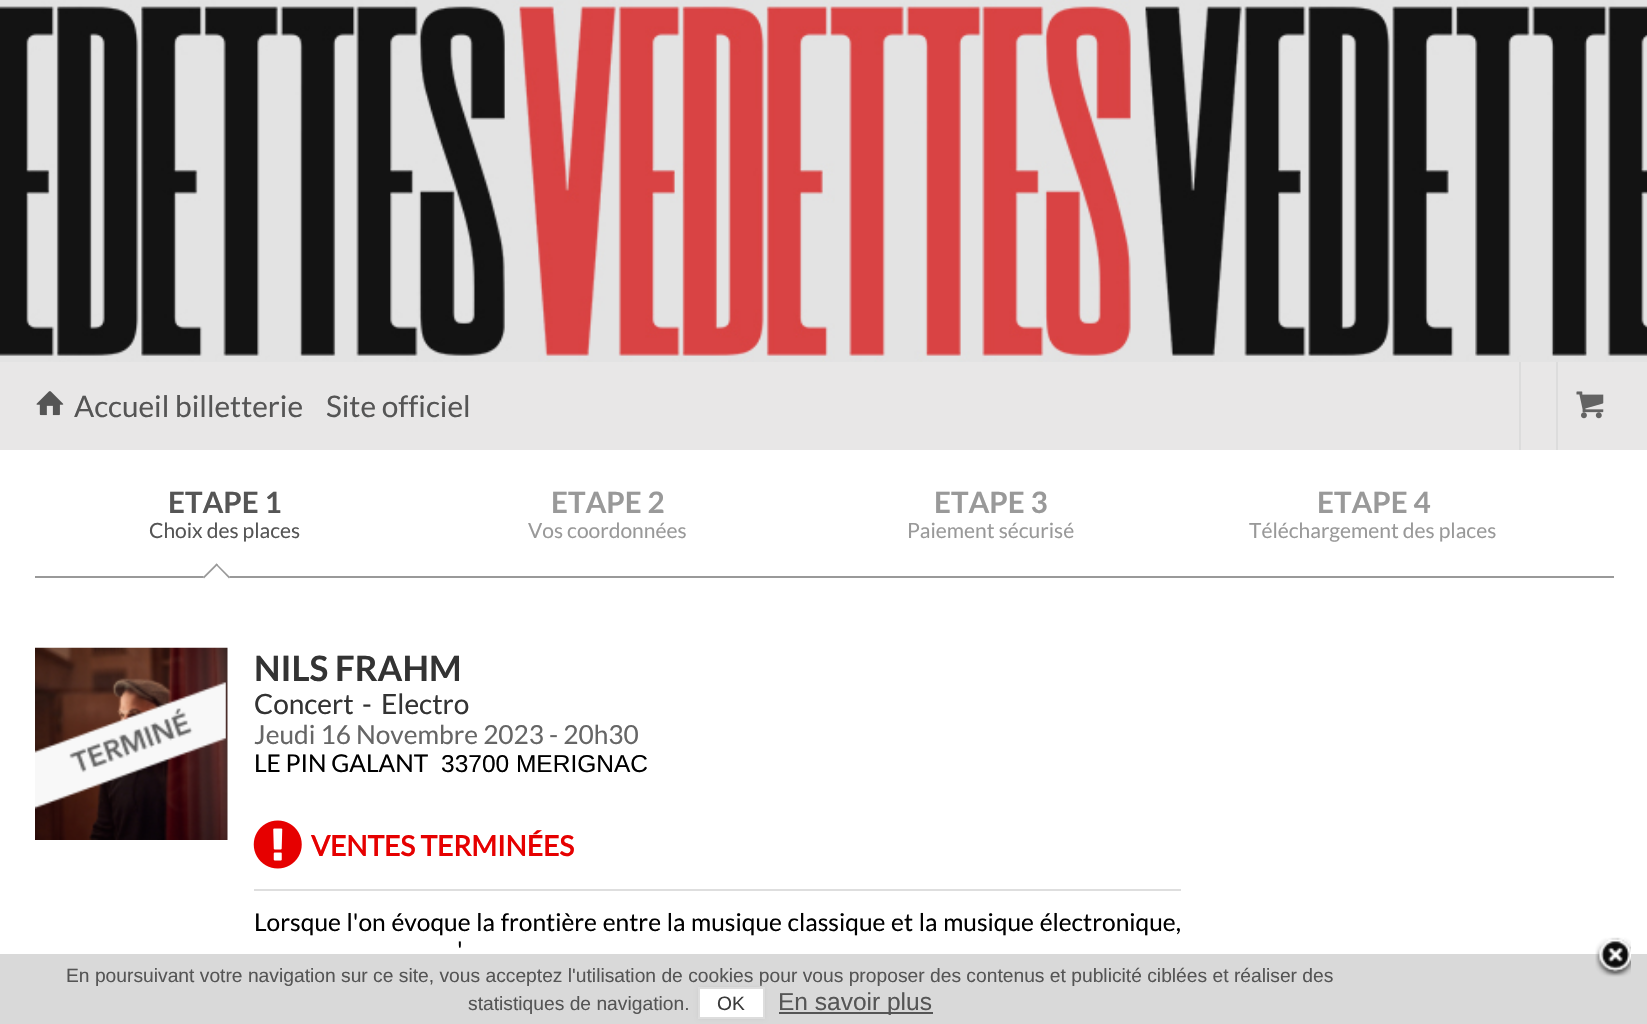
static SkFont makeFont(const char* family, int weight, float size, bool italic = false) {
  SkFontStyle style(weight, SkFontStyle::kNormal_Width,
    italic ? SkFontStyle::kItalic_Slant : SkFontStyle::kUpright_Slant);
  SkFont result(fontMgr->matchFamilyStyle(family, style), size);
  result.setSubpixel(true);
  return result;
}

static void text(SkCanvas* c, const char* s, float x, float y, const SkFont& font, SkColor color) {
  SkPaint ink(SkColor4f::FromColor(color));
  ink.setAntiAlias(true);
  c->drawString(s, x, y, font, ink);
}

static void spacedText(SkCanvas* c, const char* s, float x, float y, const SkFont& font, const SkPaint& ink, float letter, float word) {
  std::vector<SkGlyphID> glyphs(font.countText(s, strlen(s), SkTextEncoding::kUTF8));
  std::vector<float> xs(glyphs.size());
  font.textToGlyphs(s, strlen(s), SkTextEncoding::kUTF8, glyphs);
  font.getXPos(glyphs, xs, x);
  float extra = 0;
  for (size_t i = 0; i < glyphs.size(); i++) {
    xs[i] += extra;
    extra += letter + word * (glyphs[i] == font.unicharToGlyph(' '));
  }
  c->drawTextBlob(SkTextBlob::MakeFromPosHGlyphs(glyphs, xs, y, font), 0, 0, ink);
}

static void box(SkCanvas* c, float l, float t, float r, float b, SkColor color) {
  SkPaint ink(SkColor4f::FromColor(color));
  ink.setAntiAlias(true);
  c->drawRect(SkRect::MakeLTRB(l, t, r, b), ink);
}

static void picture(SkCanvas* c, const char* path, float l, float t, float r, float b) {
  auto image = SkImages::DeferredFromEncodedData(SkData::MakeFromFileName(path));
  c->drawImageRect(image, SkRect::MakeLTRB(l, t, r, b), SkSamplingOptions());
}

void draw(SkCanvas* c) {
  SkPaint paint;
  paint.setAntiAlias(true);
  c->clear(0xffffffff);
  picture(c, "img_01.png", 0, 0, 1647, 362);
  box(c, 0, 362, 1647, 450, 0xffe8e7e7);
  picture(c, "img_02.png", 36, 391, 64, 416);
  SkFont face1 = makeFont("Lato", 400, 29.75f);
  text(c, "Accueil billetterie", 74, 417, face1, 0xff555555);
  text(c, "Site officiel", 326, 417, face1, 0xff555555);
  box(c, 1519, 362, 1521, 450, 0xffdcdcdc);
  box(c, 1556, 362, 1558, 450, 0xffdcdcdc);
  picture(c, "img_03.png", 1576, 391, 1604, 419);
  box(c, 35, 576, 1614, 578, 0xff999999);
  SkFont face2 = makeFont("Lato", 700, 29.5f);
  text(c, "ETAPE 1", 168, 513, face2, 0xff555555);
  SkFont face3 = makeFont("Lato", 400, 21);
  text(c, "Choix des places", 149, 538, face3, 0xff555555);
  paint.setColor(0xffffffff);
  c->drawPath(SkPathBuilder().moveTo(216.5f, 563.5f).lineTo(230, 577).lineTo(216.5f, 590.5f).lineTo(203, 577).close().detach(), paint);
  paint.setColor(0xff999999);
  c->drawPath(SkPathBuilder().moveTo(216.5f, 563.5f).lineTo(230, 577).lineTo(229, 578.5f).lineTo(215.5f, 564.5f).close().detach(), paint);
  c->drawPath(SkPathBuilder().moveTo(216.5f, 563.5f).lineTo(218, 564.5f).lineTo(204, 578.5f).lineTo(203, 577).close().detach(), paint);
  text(c, "ETAPE 2", 551, 513, face2, 0xff999999);
  text(c, "Vos coordonnées", 528, 538, face3, 0xff999999);
  text(c, "ETAPE 3", 934, 513, face2, 0xff999999);
  text(c, "Paiement sécurisé", 907, 538, face3, 0xff999999);
  text(c, "ETAPE 4", 1317, 513, face2, 0xff999999);
  text(c, "Téléchargement des places", 1249, 538, face3, 0xff999999);
  picture(c, "img_04.png", 35, 647, 228, 840);
  picture(c, "img_05.png", 35, 682, 226, 809);
  SkFont face4 = makeFont("Lato", 700, 35);
  text(c, "NILS FRAHM", 254, 681, face4, 0xff333333);
  SkFont face5 = makeFont("Lato", 400, 28);
  text(c, "Concert", 254, 714, face5, 0xff333333);
  text(c, "-", 362, 714, face5, 0xff333333);
  text(c, "Electro", 381, 714, face5, 0xff333333);
  SkFont face6 = makeFont("Lato", 400, 26.25f);
  text(c, "Jeudi 16 Novembre 2023 - 20h30", 254, 744, face6, 0xff666666);
  SkFont face7 = makeFont("Lato", 400, 24.5f);
  text(c, "LE PIN GALANT", 254, 772, face7, 0xff000000);
  SkFont face8 = makeFont("Liberation Sans", 400, 24.5f);
  text(c, "33700 MERIGNAC", 441, 772, face8, 0xff000000);
  box(c, 254, 889, 1181, 891, 0xffdedede);
  picture(c, "img_06.png", 253, 820, 302, 869);
  SkFont face9 = makeFont("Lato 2", 700, 28);
  text(c, "VENTES TERMINÉES", 311, 856, face9, 0xffe60000);
  paint.setColor(0xff000000);
  spacedText(c, "Lorsque l'on évoque la frontière entre la musique classique et la musique électronique,", 254, 931, face7, paint, 0, 1);
  spacedText(c, "'", 457, 959, face7, paint, 0, 2);
  box(c, 0, 954, 1647, 1024, 0xffd9d9d9);
  picture(c, "img_07.png", 1595, 937, 1631, 977);
  SkFont face10 = makeFont("Liberation Sans", 400, 19.25f);
  text(c, "En poursuivant votre navigation sur ce site, vous acceptez l'utilisation de cookies pour vous proposer des contenus et publicité ciblées et réaliser des", 66, 982, face10, 0xff555555);
  text(c, "statistiques de navigation.", 468, 1010, face10, 0xff555555);
  paint.setColor(0xffcccccc);
  paint.setMaskFilter(SkMaskFilter::MakeBlur(kNormal_SkBlurStyle, 2));
  c->drawRect(SkRect::MakeLTRB(698, 987, 765, 1019), paint);
  paint.setMaskFilter(nullptr);
  paint.setColor(0xffffffff);
  c->drawRect(SkRect::MakeLTRB(699, 988, 764, 1018), paint);
  paint.setStyle(SkPaint::kStroke_Style);
  paint.setStrokeWidth(2);
  paint.setColor(0xffdddddd);
  c->drawRect(SkRect::MakeLTRB(699, 988, 764, 1018), paint);
  text(c, "OK", 717, 1010, face10, 0xff3b3b3b);
  box(c, 779, 1012, 933, 1014, 0xff555555);
  text(c, "En savoir plus", 778, 1010, face8, 0xff555555);
}
